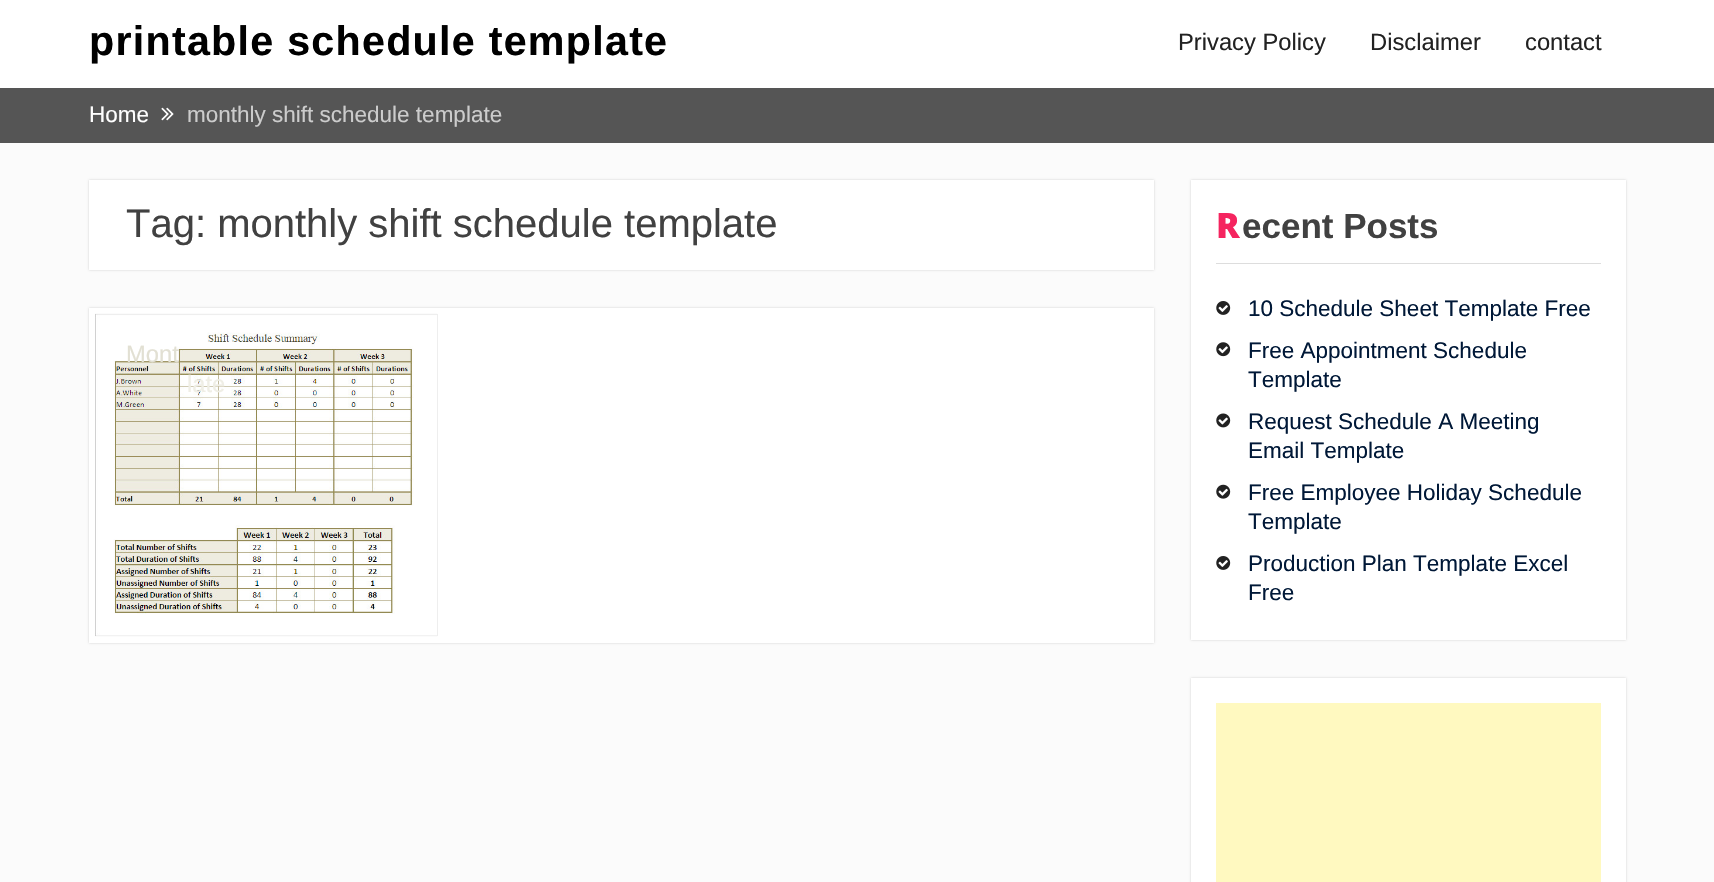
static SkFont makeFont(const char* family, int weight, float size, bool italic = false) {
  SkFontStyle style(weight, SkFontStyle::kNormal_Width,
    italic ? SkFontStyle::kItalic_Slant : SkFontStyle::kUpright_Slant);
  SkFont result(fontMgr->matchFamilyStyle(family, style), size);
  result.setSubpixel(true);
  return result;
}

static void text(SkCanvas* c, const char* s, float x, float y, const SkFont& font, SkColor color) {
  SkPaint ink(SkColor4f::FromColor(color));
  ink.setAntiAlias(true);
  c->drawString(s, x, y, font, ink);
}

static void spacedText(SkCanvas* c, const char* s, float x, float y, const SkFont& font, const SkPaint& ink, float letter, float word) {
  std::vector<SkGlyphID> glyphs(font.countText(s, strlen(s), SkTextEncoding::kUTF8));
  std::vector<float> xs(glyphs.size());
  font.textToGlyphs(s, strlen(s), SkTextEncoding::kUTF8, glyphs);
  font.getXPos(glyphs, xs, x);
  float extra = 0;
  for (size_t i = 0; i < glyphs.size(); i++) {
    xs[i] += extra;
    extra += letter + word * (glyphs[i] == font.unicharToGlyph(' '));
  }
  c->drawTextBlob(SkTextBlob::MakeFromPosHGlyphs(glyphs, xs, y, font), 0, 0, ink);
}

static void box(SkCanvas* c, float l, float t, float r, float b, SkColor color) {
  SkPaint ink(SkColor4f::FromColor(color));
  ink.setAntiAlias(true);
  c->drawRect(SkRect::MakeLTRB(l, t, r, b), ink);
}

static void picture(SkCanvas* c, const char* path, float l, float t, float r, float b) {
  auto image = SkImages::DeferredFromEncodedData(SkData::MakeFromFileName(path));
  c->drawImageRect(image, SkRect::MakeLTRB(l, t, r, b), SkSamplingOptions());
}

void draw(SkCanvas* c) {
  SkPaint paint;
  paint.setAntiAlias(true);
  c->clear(0xfffbfbfb);
  box(c, 0, 0, 1714, 88, 0xffffffff);
  SkFont face1 = makeFont("Liberation Sans", 700, 41.25f);
  paint.setColor(0xff000000);
  spacedText(c, "printable schedule template", 89, 55, face1, paint, 1.25f, 0);
  SkFont face2 = makeFont("Liberation Sans", 400, 23.75f);
  text(c, "Privacy Policy", 1178, 50, face2, 0xff222222);
  text(c, "Disclaimer", 1370, 50, face2, 0xff222222);
  text(c, "contact", 1525, 50, face2, 0xff222222);
  box(c, 0, 88, 1714, 143, 0xff555555);
  SkFont face3 = makeFont("Liberation Sans", 400, 22.5f);
  text(c, "Home", 89, 122, face3, 0xffffffff);
  picture(c, "img_01.png", 161, 107, 174, 121);
  text(c, "monthly shift schedule template", 187, 122, face3, 0xffcccccc);
  paint.setColor(0xffcfcfcf);
  paint.setMaskFilter(SkMaskFilter::MakeBlur(kNormal_SkBlurStyle, 1));
  c->drawRect(SkRect::MakeLTRB(89, 180, 1154, 270), paint);
  paint.setMaskFilter(nullptr);
  box(c, 89, 180, 1154, 270, 0xffffffff);
  SkFont face4 = makeFont("Liberation Sans", 400, 40);
  text(c, "Tag: monthly shift schedule template", 126, 237, face4, 0xff414141);
  paint.setMaskFilter(SkMaskFilter::MakeBlur(kNormal_SkBlurStyle, 1));
  c->drawRect(SkRect::MakeLTRB(89, 308, 1154, 643), paint);
  paint.setMaskFilter(nullptr);
  box(c, 89, 308, 1154, 643, 0xffffffff);
  picture(c, "img_02.png", 95, 313, 438, 637);
  text(c, "Mont", 126, 362, face2, 0xffe2e0d3);
  text(c, "late", 187, 392, face2, 0xffefeee5);
  paint.setMaskFilter(SkMaskFilter::MakeBlur(kNormal_SkBlurStyle, 1));
  c->drawRect(SkRect::MakeLTRB(1191, 180, 1626, 640), paint);
  paint.setMaskFilter(nullptr);
  box(c, 1191, 180, 1626, 640, 0xffffffff);
  box(c, 1216, 263, 1601, 264, 0xffdddddd);
  SkFont face5 = makeFont("Noto Sans", 900, 35);
  text(c, "R", 1216, 238, face5, 0xfff5245f);
  SkFont face6 = makeFont("Liberation Sans", 700, 35);
  text(c, "ecent Posts", 1242, 238, face6, 0xff414141);
  picture(c, "img_03.png", 1216, 301, 1231, 315);
  text(c, "10 Schedule Sheet Template Free", 1248, 316, face3, 0xff001837);
  picture(c, "img_04.png", 1216, 342, 1231, 357);
  text(c, "Free Appointment Schedule", 1248, 358, face3, 0xff001837);
  text(c, "Template", 1248, 387, face3, 0xff001837);
  picture(c, "img_05.png", 1216, 413, 1231, 428);
  text(c, "Request Schedule A Meeting", 1248, 429, face3, 0xff001837);
  text(c, "Email Template", 1248, 458, face3, 0xff001837);
  picture(c, "img_06.png", 1216, 484, 1231, 499);
  text(c, "Free Employee Holiday Schedule", 1248, 500, face3, 0xff001837);
  text(c, "Template", 1248, 529, face3, 0xff001837);
  picture(c, "img_03.png", 1216, 556, 1231, 570);
  text(c, "Production Plan Template Excel", 1248, 571, face3, 0xff001837);
  text(c, "Free", 1248, 600, face3, 0xff001837);
  paint.setMaskFilter(SkMaskFilter::MakeBlur(kNormal_SkBlurStyle, 1));
  c->drawRect(SkRect::MakeLTRB(1191, 678, 1626, 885), paint);
  paint.setMaskFilter(nullptr);
  box(c, 1191, 678, 1626, 882, 0xffffffff);
  box(c, 1216, 703, 1601, 882, 0xfffff9c0);
}
